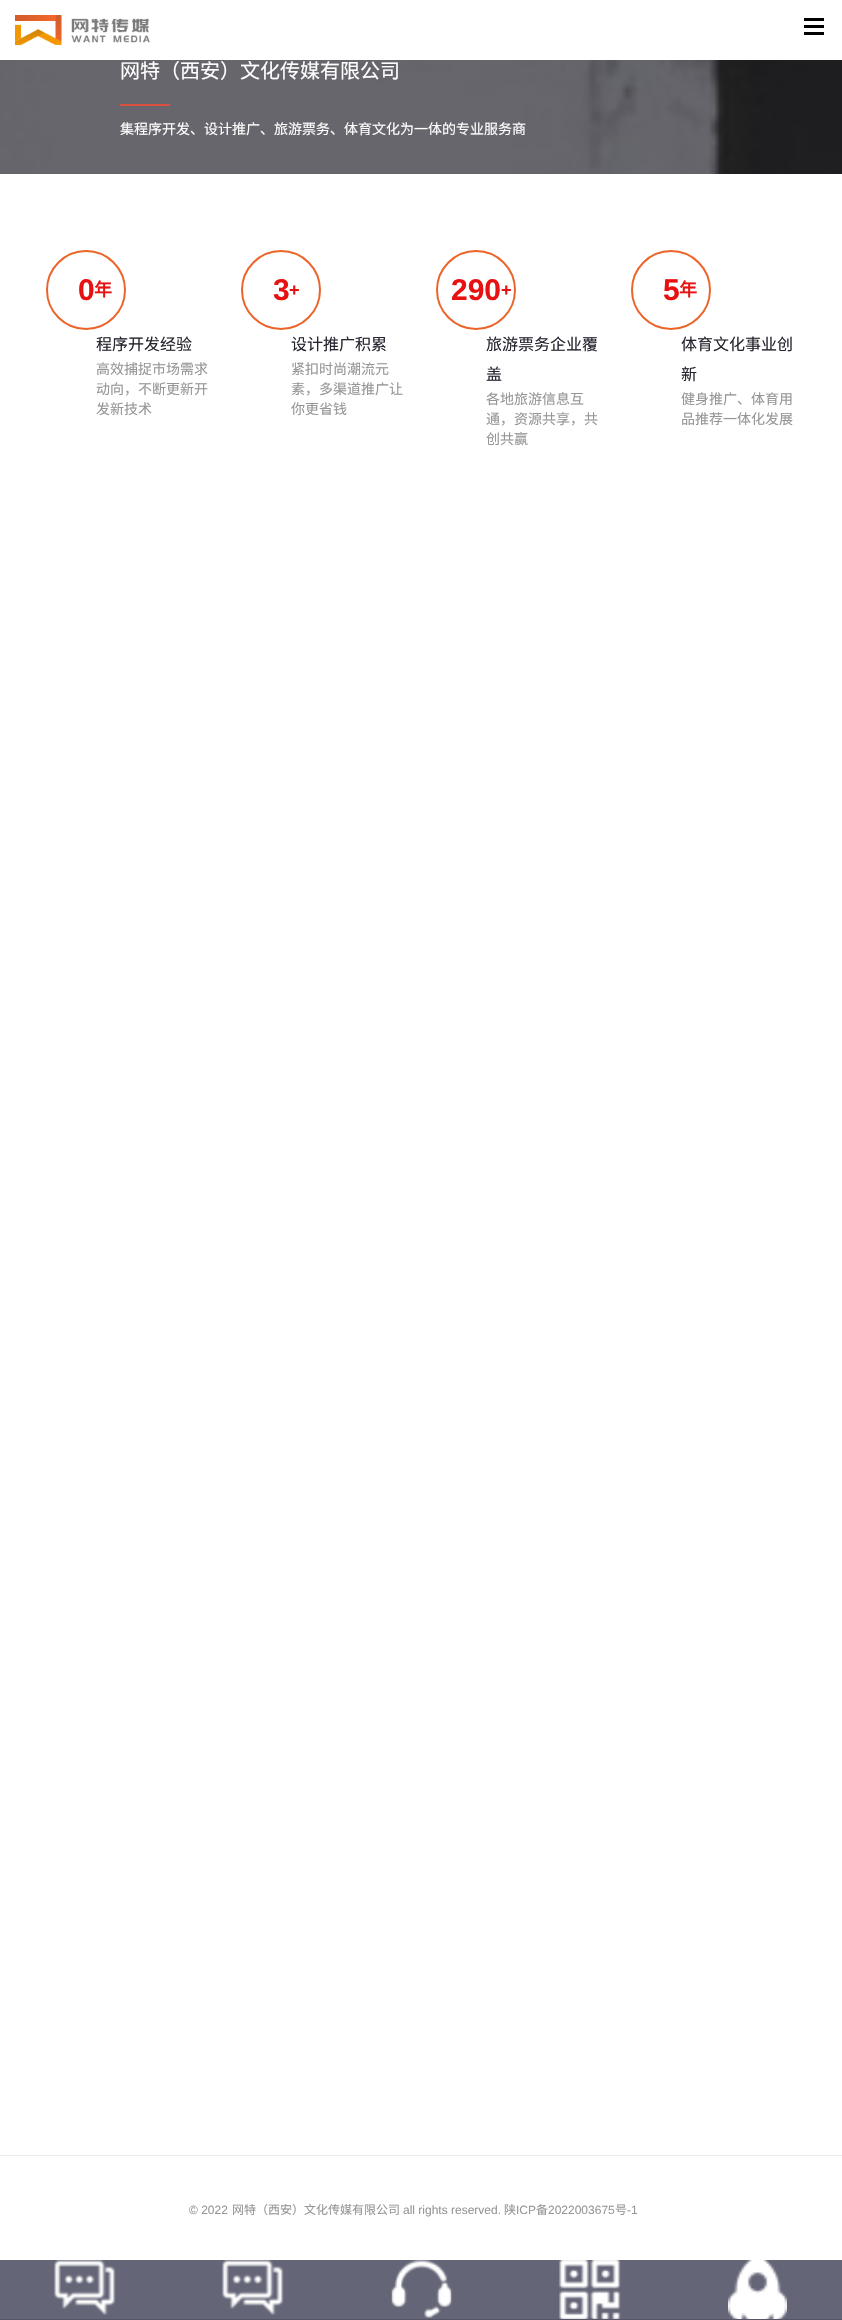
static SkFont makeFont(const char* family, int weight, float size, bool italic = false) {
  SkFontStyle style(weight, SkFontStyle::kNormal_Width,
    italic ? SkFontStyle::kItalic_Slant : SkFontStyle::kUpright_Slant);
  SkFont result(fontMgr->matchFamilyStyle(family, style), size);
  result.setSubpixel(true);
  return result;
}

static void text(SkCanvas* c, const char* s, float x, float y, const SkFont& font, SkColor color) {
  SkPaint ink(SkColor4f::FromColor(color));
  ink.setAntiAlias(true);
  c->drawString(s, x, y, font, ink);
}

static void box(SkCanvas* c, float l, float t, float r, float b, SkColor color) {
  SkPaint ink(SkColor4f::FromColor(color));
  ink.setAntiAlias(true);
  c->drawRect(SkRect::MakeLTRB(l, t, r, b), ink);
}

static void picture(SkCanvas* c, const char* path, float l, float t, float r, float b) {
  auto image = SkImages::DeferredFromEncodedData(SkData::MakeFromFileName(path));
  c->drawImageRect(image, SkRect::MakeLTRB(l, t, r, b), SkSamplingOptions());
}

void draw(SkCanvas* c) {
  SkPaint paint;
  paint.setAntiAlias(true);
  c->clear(0xffffffff);
  picture(c, "img_01.png", 15, 15, 150, 45);
  box(c, 804, 18, 824, 21, 0xff000000);
  box(c, 804, 25, 824, 28, 0xff000000);
  box(c, 804, 32, 824, 35, 0xff000000);
  picture(c, "img_02.png", 0, 60, 842, 174);
  SkFont face1 = makeFont("Noto Sans CJK SC", 400, 20);
  text(c, "网特（西安）文化传媒有限公司", 120, 78, face1, 0xffffffff);
  box(c, 120, 104, 170, 106, 0xffdb513d);
  SkFont face2 = makeFont("Noto Sans CJK SC", 400, 14);
  text(c, "集程序开发、设计推广、旅游票务、体育文化为一体的专业服务商", 120, 134, face2, 0xffffffff);
  paint.setStyle(SkPaint::kStroke_Style);
  paint.setStrokeWidth(2);
  paint.setColor(0xffec642a);
  c->drawCircle(86, 290, 39, paint);
  SkFont face3 = makeFont("Liberation Sans", 700, 30);
  text(c, "0", 78, 300, face3, 0xffe71111);
  SkFont face4 = makeFont("Noto Sans CJK SC", 700, 18);
  text(c, "年", 94, 296, face4, 0xffe71111);
  SkFont face5 = makeFont("Noto Sans CJK SC", 400, 16);
  text(c, "程序开发经验", 96, 350, face5, 0xff252530);
  text(c, "高效捕捉市场需求", 96, 374, face2, 0xff969696);
  text(c, "动向，不断更新开", 96, 394, face2, 0xff969696);
  text(c, "发新技术", 96, 414, face2, 0xff969696);
  c->drawCircle(281, 290, 39, paint);
  text(c, "3", 273, 300, face3, 0xffe71111);
  SkFont face6 = makeFont("Liberation Sans", 700, 18);
  text(c, "+", 289, 296, face6, 0xffe71111);
  text(c, "设计推广积累", 291, 350, face5, 0xff252530);
  text(c, "紧扣时尚潮流元", 291, 374, face2, 0xff969696);
  text(c, "素，多渠道推广让", 291, 394, face2, 0xff969696);
  text(c, "你更省钱", 291, 414, face2, 0xff969696);
  c->drawCircle(476, 290, 39, paint);
  text(c, "290", 451, 300, face3, 0xffe71111);
  text(c, "+", 501, 296, face6, 0xffe71111);
  text(c, "旅游票务企业覆", 486, 350, face5, 0xff252530);
  text(c, "盖", 486, 380, face5, 0xff252530);
  text(c, "各地旅游信息互", 486, 404, face2, 0xff969696);
  text(c, "通，资源共享，共", 486, 424, face2, 0xff969696);
  text(c, "创共赢", 486, 444, face2, 0xff969696);
  c->drawCircle(671, 290, 39, paint);
  text(c, "5", 663, 300, face3, 0xffe71111);
  text(c, "年", 679, 296, face4, 0xffe71111);
  text(c, "体育文化事业创", 681, 350, face5, 0xff252530);
  text(c, "新", 681, 380, face5, 0xff252530);
  text(c, "健身推广、体育用", 681, 404, face2, 0xff969696);
  text(c, "品推荐一体化发展", 681, 424, face2, 0xff969696);
  box(c, 0, 2155, 842, 2156, 0xffe9e9e9);
  SkFont face7 = makeFont("Liberation Sans", 400, 12);
  text(c, "© 2022", 189, 2214, face7, 0xff969696);
  SkFont face8 = makeFont("Noto Sans CJK SC", 400, 12);
  text(c, "网特（西安）文化传媒有限公司", 232, 2214, face8, 0xff969696);
  text(c, "all rights reserved.", 403, 2214, face7, 0xff969696);
  text(c, "陕", 504, 2214, face8, 0xff969696);
  text(c, "ICP", 516, 2214, face7, 0xff969696);
  text(c, "备", 536, 2214, face8, 0xff969696);
  text(c, "2022003675", 548, 2214, face7, 0xff969696);
  text(c, "号", 615, 2214, face8, 0xff969696);
  text(c, "-1", 627, 2214, face7, 0xff969696);
  box(c, 0, 2260, 842, 2319, 0xff646577);
  picture(c, "img_03.png", 54, 2260, 116, 2315);
  box(c, 0, 2319, 842, 2320, 0xff555666);
  picture(c, "img_03.png", 222, 2260, 284, 2315);
  picture(c, "img_04.png", 391, 2260, 453, 2318);
  picture(c, "img_05.png", 559, 2260, 621, 2319);
  picture(c, "img_06.png", 728, 2260, 787, 2319);
}
